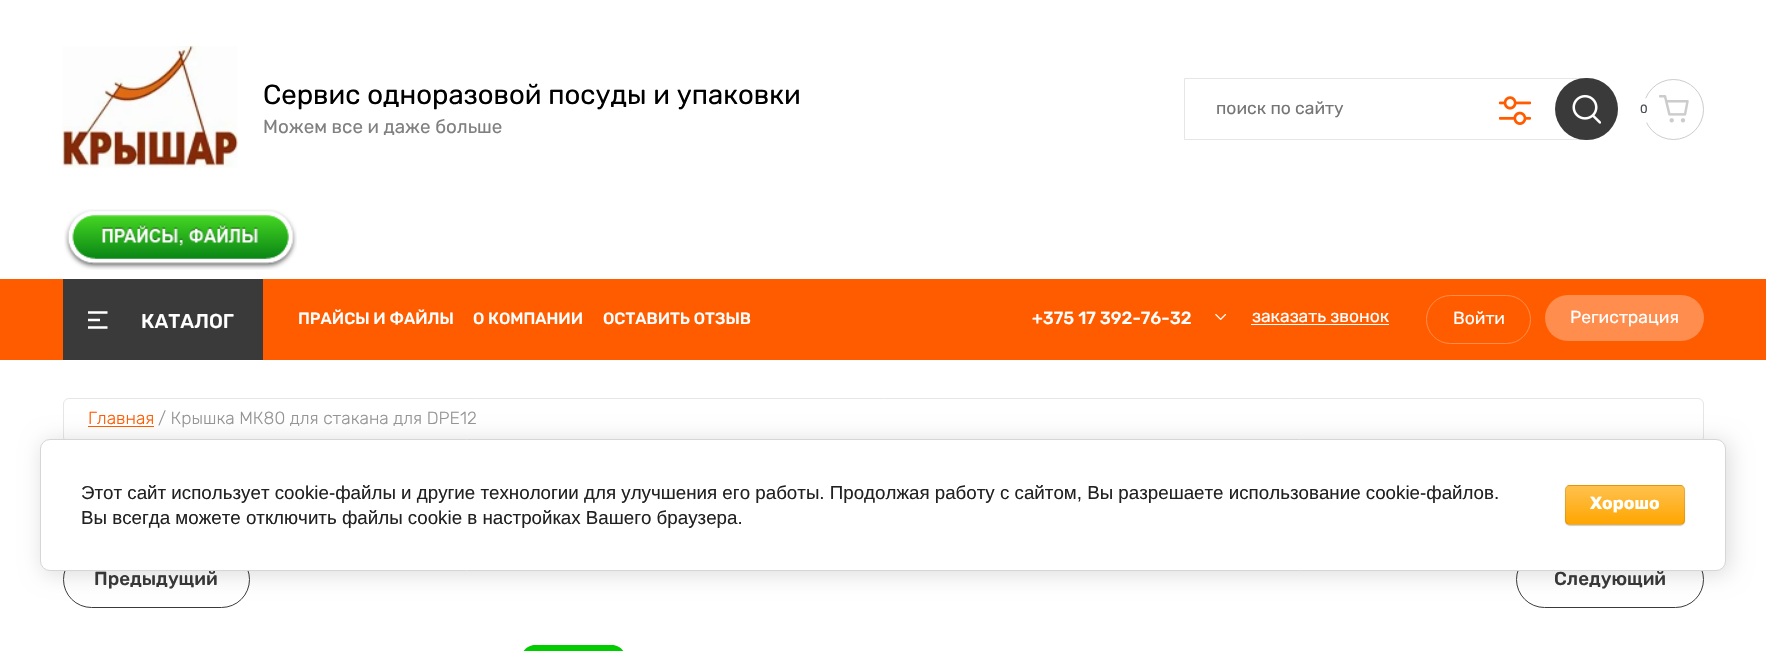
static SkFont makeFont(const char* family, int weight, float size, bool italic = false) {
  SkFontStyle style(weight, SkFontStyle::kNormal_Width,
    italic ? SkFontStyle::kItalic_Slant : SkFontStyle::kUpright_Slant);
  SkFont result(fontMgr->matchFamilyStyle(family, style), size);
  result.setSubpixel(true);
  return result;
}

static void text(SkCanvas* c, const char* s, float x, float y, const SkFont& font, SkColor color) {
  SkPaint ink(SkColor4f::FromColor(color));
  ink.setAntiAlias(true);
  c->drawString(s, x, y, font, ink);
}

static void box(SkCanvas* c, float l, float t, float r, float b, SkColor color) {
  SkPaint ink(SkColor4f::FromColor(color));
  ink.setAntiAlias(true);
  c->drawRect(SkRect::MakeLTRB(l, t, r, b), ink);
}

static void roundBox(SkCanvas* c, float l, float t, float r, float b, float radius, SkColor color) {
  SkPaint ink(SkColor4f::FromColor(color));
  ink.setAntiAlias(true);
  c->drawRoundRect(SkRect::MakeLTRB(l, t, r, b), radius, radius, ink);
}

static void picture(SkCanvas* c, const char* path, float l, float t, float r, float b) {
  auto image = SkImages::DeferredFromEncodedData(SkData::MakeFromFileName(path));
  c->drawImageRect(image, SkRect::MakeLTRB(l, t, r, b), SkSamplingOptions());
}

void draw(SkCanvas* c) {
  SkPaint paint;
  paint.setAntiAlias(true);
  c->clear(0xffffffff);
  picture(c, "img_01.png", 62, 46, 238, 168);
  SkFont face1 = makeFont("Rubik", 400, 27.5f);
  text(c, "Сервис одноразовой посуды и упаковки", 263, 104, face1, 0xff000000);
  SkFont face2 = makeFont("Rubik", 400, 18.75f);
  text(c, "Можем все и даже больше", 263, 133, face2, 0xff808080);
  paint.setStyle(SkPaint::kStroke_Style);
  paint.setStrokeWidth(1);
  paint.setColor(0xffe6e6e6);
  c->drawPath(SkPathBuilder().moveTo(1184.5f, 78.5f).lineTo(1587, 78.5f).cubicTo(1604, 78.5f, 1617.5f, 92, 1617.5f, 109).cubicTo(1617.5f, 126, 1604, 139.5f, 1587, 139.5f).lineTo(1184.5f, 139.5f).close().detach(), paint);
  SkFont face3 = makeFont("Rubik", 400, 17.5f);
  text(c, "поиск по сайту", 1216, 114, face3, 0xff757575);
  picture(c, "img_02.png", 1499, 96, 1531, 125);
  roundBox(c, 1555, 78, 1618, 140, 31, 0xff3a3a3a);
  picture(c, "img_03.png", 1572, 95, 1601, 124);
  paint.setColor(0xffcccccc);
  c->drawCircle(1673.5f, 109.5f, 30, paint);
  paint.setStyle(SkPaint::kFill_Style);
  paint.setColor(0xffffffff);
  c->drawCircle(1643.5f, 110.5f, 12.5f, paint);
  SkFont face4 = makeFont("Rubik", 400, 12);
  text(c, "0", 1640, 113, face4, 0xff484c50);
  picture(c, "img_04.png", 1659, 95, 1689, 123);
  picture(c, "img_05.png", 64, 209, 297, 270);
  box(c, 0, 279, 1766, 360, 0xffff5c00);
  box(c, 63, 279, 263, 360, 0xff3a3a3a);
  picture(c, "img_06.png", 88, 311, 108, 329);
  SkFont face5 = makeFont("Rubik", 500, 20);
  text(c, "КАТАЛОГ", 141, 328, face5, 0xffffffff);
  SkFont face6 = makeFont("Rubik", 500, 16.25f);
  text(c, "ПРАЙСЫ И ФАЙЛЫ", 298, 324, face6, 0xffffffff);
  text(c, "О КОМПАНИИ", 473, 324, face6, 0xffffffff);
  text(c, "ОСТАВИТЬ ОТЗЫВ", 603, 324, face6, 0xffffffff);
  SkFont face7 = makeFont("Rubik", 500, 17.5f);
  text(c, "+375 17 392-76-32", 1032, 324, face7, 0xffffffff);
  picture(c, "img_07.png", 1215, 314, 1226, 320);
  text(c, "заказать звонок", 1252, 322, face3, 0xffffffff);
  box(c, 1251, 324, 1389, 325, 0xffffffff);
  paint.setStyle(SkPaint::kStroke_Style);
  paint.setColor(0xffff8d4d);
  c->drawRoundRect(SkRect::MakeLTRB(1426.5f, 295.5f, 1530.5f, 343.5f), 24, 24, paint);
  text(c, "Войти", 1453, 324, face3, 0xffffffff);
  roundBox(c, 1545, 295, 1704, 341, 23, 0xffff8d4d);
  text(c, "Регистрация", 1570, 323, face3, 0xffffffff);
  paint.setColor(0xffe6e6e6);
  c->drawRoundRect(SkRect::MakeLTRB(63.5f, 398.5f, 1703.5f, 442.5f), 5.5f, 5.5f, paint);
  SkFont face8 = makeFont("Rubik", 300, 17.5f);
  text(c, "Главная", 88, 424, face8, 0xffff5c00);
  box(c, 88, 426, 154, 427, 0xffff5c00);
  text(c, "/ Крышка МК80 для стакана для DPE12", 158, 424, face8, 0xff959595);
  paint.setColor(0xff3a3a3a);
  c->drawRoundRect(SkRect::MakeLTRB(63.5f, 551.5f, 249.5f, 607.5f), 28, 28, paint);
  SkFont face9 = makeFont("Rubik", 500, 18.75f);
  text(c, "Предыдущий", 94, 585, face9, 0xff3a3a3a);
  c->drawRoundRect(SkRect::MakeLTRB(1516.5f, 551.5f, 1703.5f, 607.5f), 28, 28, paint);
  text(c, "Следующий", 1554, 585, face9, 0xff3a3a3a);
  paint.setStyle(SkPaint::kFill_Style);
  paint.setColor(0xff00cc00);
  c->drawPath(SkPathBuilder().moveTo(535, 645).lineTo(612, 645).cubicTo(619.5f, 645, 626, 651.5f, 626, 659).lineTo(626, 651).cubicTo(626, 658.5f, 619.5f, 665, 612, 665).lineTo(521, 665).lineTo(521, 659).cubicTo(521, 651.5f, 527.5f, 645, 535, 645).close().detach(), paint);
  paint.setColor(0x24000000);
  paint.setMaskFilter(SkMaskFilter::MakeBlur(kNormal_SkBlurStyle, 11));
  c->drawRoundRect(SkRect::MakeLTRB(43, 441, 1729, 574), 10, 10, paint);
  paint.setMaskFilter(nullptr);
  paint.setColor(0xffffffff);
  c->drawRoundRect(SkRect::MakeLTRB(40.5f, 439.5f, 1725.5f, 570.5f), 9.5f, 9.5f, paint);
  paint.setStyle(SkPaint::kStroke_Style);
  paint.setColor(0xffd6d6d6);
  c->drawRoundRect(SkRect::MakeLTRB(40.5f, 439.5f, 1725.5f, 570.5f), 9.5f, 9.5f, paint);
  SkFont face10 = makeFont("Liberation Sans", 400, 18.75f);
  text(c, "Этот сайт использует cookie-файлы и другие технологии для улучшения его работы. Продолжая работу с сайтом, Вы разрешаете использование cookie-файлов.", 81, 499, face10, 0xff212121);
  text(c, "Вы всегда можете отключить файлы cookie в настройках Вашего браузера.", 81, 524, face10, 0xff212121);
  paint.setStyle(SkPaint::kFill_Style);
  paint.setColor(0x33000000);
  paint.setMaskFilter(SkMaskFilter::MakeBlur(kNormal_SkBlurStyle, 0.5f));
  c->drawRoundRect(SkRect::MakeLTRB(1565, 486, 1685, 526), 5, 5, paint);
  paint.setMaskFilter(nullptr);
  c->save();
  c->clipPath(SkPathBuilder().moveTo(1570, 485).lineTo(1680, 485).cubicTo(1683, 485, 1685, 487, 1685, 490).lineTo(1685, 520).cubicTo(1685, 523, 1683, 525, 1680, 525).lineTo(1570, 525).cubicTo(1567, 525, 1565, 523, 1565, 520).lineTo(1565, 490).cubicTo(1565, 487, 1567, 485, 1570, 485).close().detach(), true);
  {
    const SkColor colors[] = {0xffffc14e, 0xffffa601};
    const float stops[] = {0, 1};
    const SkPoint ends[] = {{1625, 449}, {1625, 486}};
    paint.setShader(SkGradientShader::MakeLinear(ends, colors, stops, 2, SkTileMode::kClamp));
    paint.setAlpha(255);
  }
  c->drawRect(SkRect::MakeLTRB(1565, 485, 1685, 486), paint);
  {
    const SkColor colors[] = {0xffffc14e, 0xffffa601};
    const float stops[] = {0, 1};
    const SkPoint ends[] = {{1625, 486}, {1625, 524}};
    paint.setShader(SkGradientShader::MakeLinear(ends, colors, stops, 2, SkTileMode::kClamp));
    paint.setAlpha(255);
  }
  c->drawRect(SkRect::MakeLTRB(1565, 486, 1685, 524), paint);
  {
    const SkColor colors[] = {0xffffc14e, 0xffffa601};
    const float stops[] = {0, 1};
    const SkPoint ends[] = {{1625, 524}, {1625, 561}};
    paint.setShader(SkGradientShader::MakeLinear(ends, colors, stops, 2, SkTileMode::kClamp));
    paint.setAlpha(255);
  }
  c->drawRect(SkRect::MakeLTRB(1565, 524, 1685, 525), paint);
  c->restore();
  paint.setStyle(SkPaint::kStroke_Style);
  paint.setShader(nullptr);
  paint.setColor(0x1a000000);
  c->drawRoundRect(SkRect::MakeLTRB(1565.5f, 485.5f, 1684.5f, 524.5f), 4.5f, 4.5f, paint);
  SkFont face11 = makeFont("Rubik", 700, 17.5f);
  text(c, "Хорошо", 1590, 509, face11, 0xffffffff);
}
